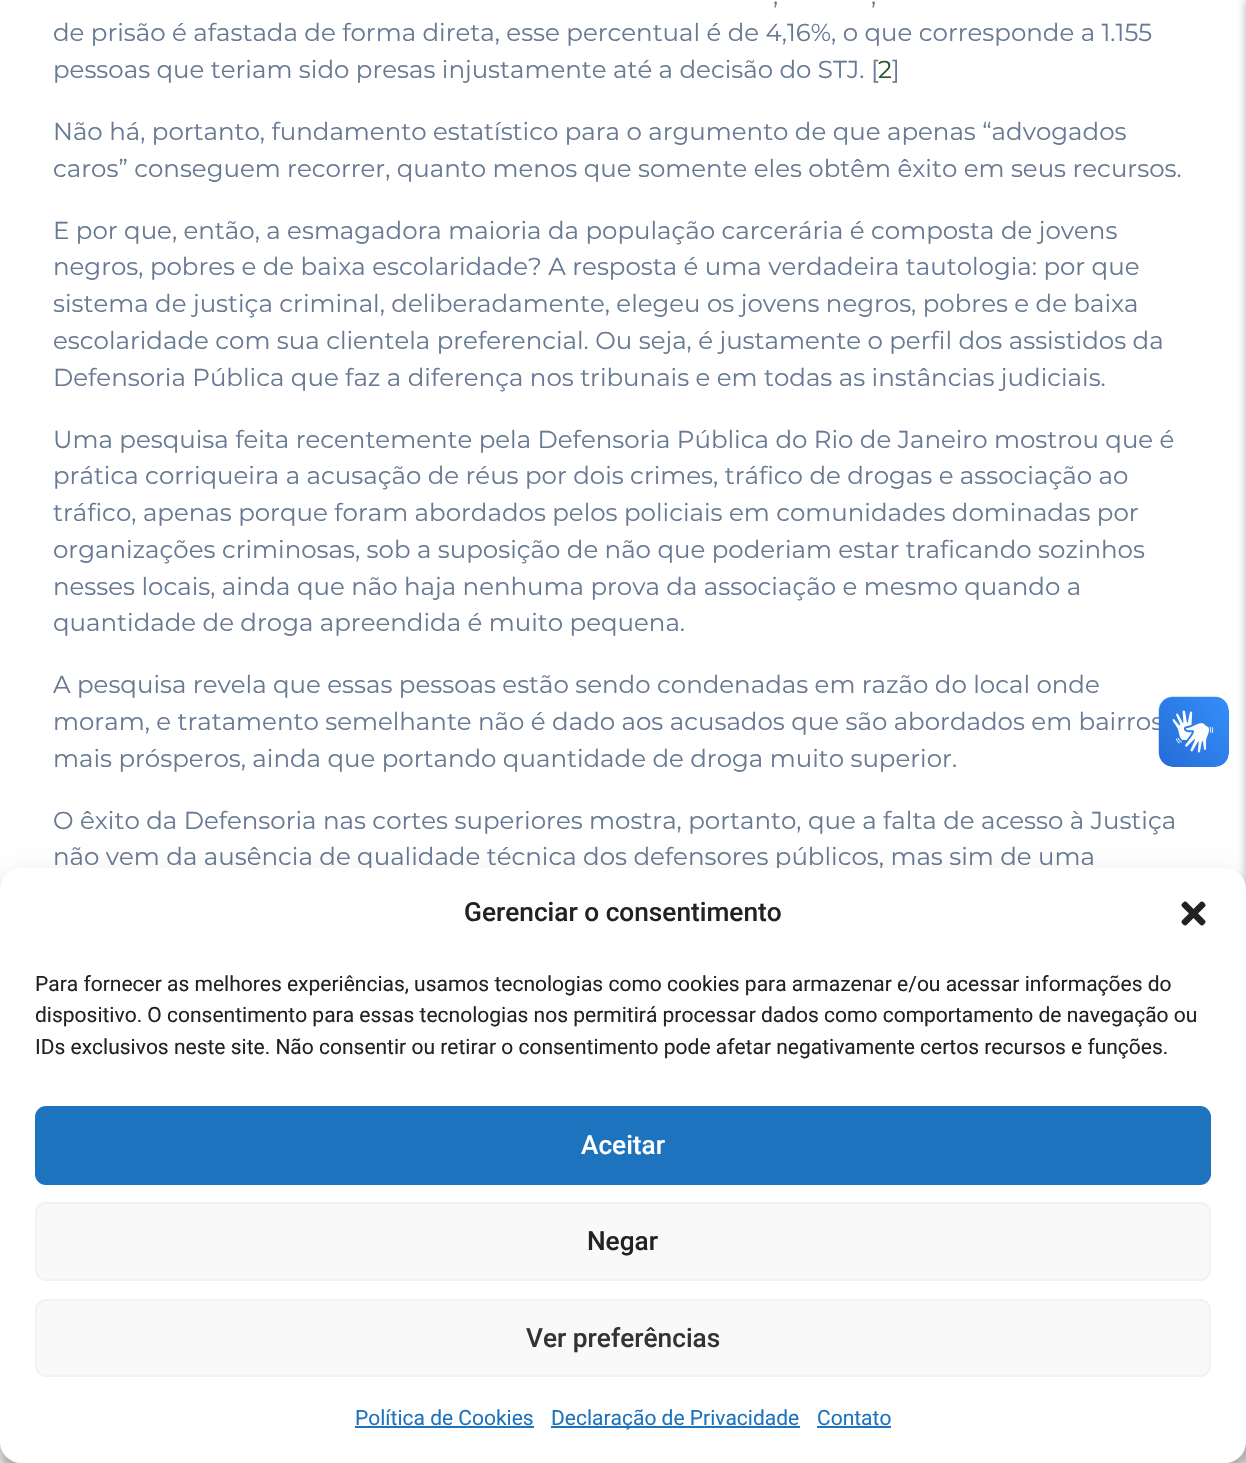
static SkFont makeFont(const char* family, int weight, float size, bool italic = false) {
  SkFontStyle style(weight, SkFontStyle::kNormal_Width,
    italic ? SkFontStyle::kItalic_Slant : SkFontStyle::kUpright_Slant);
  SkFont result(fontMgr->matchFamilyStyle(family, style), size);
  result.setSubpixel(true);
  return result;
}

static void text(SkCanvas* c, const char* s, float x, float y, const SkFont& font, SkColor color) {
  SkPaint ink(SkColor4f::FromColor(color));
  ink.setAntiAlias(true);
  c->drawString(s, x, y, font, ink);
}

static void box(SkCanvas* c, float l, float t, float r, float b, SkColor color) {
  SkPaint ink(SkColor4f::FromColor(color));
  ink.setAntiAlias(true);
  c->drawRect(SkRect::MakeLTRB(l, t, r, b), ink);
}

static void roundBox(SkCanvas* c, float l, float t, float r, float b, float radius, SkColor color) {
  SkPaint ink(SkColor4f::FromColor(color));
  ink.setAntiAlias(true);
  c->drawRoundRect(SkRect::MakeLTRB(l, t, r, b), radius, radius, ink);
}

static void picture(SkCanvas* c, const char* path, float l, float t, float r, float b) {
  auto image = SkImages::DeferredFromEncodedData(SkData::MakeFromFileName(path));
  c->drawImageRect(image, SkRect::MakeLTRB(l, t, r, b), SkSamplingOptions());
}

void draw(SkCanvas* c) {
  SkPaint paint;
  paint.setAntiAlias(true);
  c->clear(0xffffffff);
  SkFont face1 = makeFont("Montserrat", 400, 24.5f);
  text(c, ",", 773, 4, face1, 0xff677993);
  text(c, ",", 871, 4, face1, 0xff677993);
  text(c, "de prisão é afastada de forma direta, esse percentual é de 4,16%, o que corresponde a 1.155", 53, 41, face1, 0xff677993);
  text(c, "pessoas que teriam sido presas injustamente até a decisão do STJ. [", 53, 78, face1, 0xff677993);
  text(c, "2", 878, 78, face1, 0xff225229);
  text(c, "]", 892, 78, face1, 0xff677993);
  text(c, "Não há, portanto, fundamento estatístico para o argumento de que apenas “advogados", 53, 140, face1, 0xff677993);
  text(c, "caros” conseguem recorrer, quanto menos que somente eles obtêm êxito em seus recursos.", 53, 177, face1, 0xff677993);
  text(c, "E por que, então, a esmagadora maioria da população carcerária é composta de jovens", 53, 239, face1, 0xff677993);
  text(c, "negros, pobres e de baixa escolaridade? A resposta é uma verdadeira tautologia: por que", 53, 275, face1, 0xff677993);
  text(c, "sistema de justiça criminal, deliberadamente, elegeu os jovens negros, pobres e de baixa", 53, 312, face1, 0xff677993);
  text(c, "escolaridade com sua clientela preferencial. Ou seja, é justamente o perfil dos assistidos da", 53, 349, face1, 0xff677993);
  text(c, "Defensoria Pública que faz a diferença nos tribunais e em todas as instâncias judiciais.", 53, 386, face1, 0xff677993);
  text(c, "Uma pesquisa feita recentemente pela Defensoria Pública do Rio de Janeiro mostrou que é", 53, 448, face1, 0xff677993);
  text(c, "prática corriqueira a acusação de réus por dois crimes, tráfico de drogas e associação ao", 53, 484, face1, 0xff677993);
  text(c, "tráfico, apenas porque foram abordados pelos policiais em comunidades dominadas por", 53, 521, face1, 0xff677993);
  text(c, "organizações criminosas, sob a suposição de não que poderiam estar traficando sozinhos", 53, 558, face1, 0xff677993);
  text(c, "nesses locais, ainda que não haja nenhuma prova da associação e mesmo quando a", 53, 595, face1, 0xff677993);
  text(c, "quantidade de droga apreendida é muito pequena.", 53, 631, face1, 0xff677993);
  text(c, "A pesquisa revela que essas pessoas estão sendo condenadas em razão do local onde", 53, 693, face1, 0xff677993);
  text(c, "moram, e tratamento semelhante não é dado aos acusados que são abordados em bairros", 53, 730, face1, 0xff677993);
  text(c, "mais prósperos, ainda que portando quantidade de droga muito superior.", 53, 767, face1, 0xff677993);
  text(c, "O êxito da Defensoria nas cortes superiores mostra, portanto, que a falta de acesso à Justiça", 53, 829, face1, 0xff677993);
  text(c, "não vem da ausência de qualidade técnica dos defensores públicos, mas sim de uma", 53, 865, face1, 0xff677993);
  picture(c, "img_01.png", 1158, 696, 1229, 767);
  picture(c, "img_02.png", 1159, 697, 1229, 767);
  paint.setColor(0x4d000000);
  paint.setMaskFilter(SkMaskFilter::MakeBlur(kNormal_SkBlurStyle, 4.5f));
  c->drawRect(SkRect::MakeLTRB(1246, 0, 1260, 1463), paint);
  paint.setMaskFilter(nullptr);
  paint.setColor(0x3b000000);
  paint.setMaskFilter(SkMaskFilter::MakeBlur(kNormal_SkBlurStyle, 5));
  c->drawRoundRect(SkRect::MakeLTRB(0, 879, 1246, 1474), 21, 21, paint);
  paint.setMaskFilter(nullptr);
  paint.setColor(0x30000000);
  paint.setMaskFilter(SkMaskFilter::MakeBlur(kNormal_SkBlurStyle, 17.5f));
  c->drawRoundRect(SkRect::MakeLTRB(0, 886, 1246, 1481), 21, 21, paint);
  paint.setMaskFilter(nullptr);
  roundBox(c, 0, 868, 1246, 1463, 21, 0xffffffff);
  SkFont face2 = makeFont("Roboto", 500, 26.25f);
  text(c, "Gerenciar o consentimento", 464, 921, face2, 0xff222222);
  picture(c, "img_03.png", 1181, 901, 1206, 926);
  SkFont face3 = makeFont("Roboto", 400, 21);
  text(c, "Para fornecer as melhores experiências, usamos tecnologias como cookies para armazenar e/ou acessar informações do", 35, 991, face3, 0xff222222);
  text(c, "dispositivo. O consentimento para essas tecnologias nos permitirá processar dados como comportamento de navegação ou", 35, 1022, face3, 0xff222222);
  text(c, "IDs exclusivos neste site. Não consentir ou retirar o consentimento pode afetar negativamente certos recursos e funções.", 35, 1054, face3, 0xff222222);
  paint.setColor(0xff1e73be);
  c->drawRoundRect(SkRect::MakeLTRB(36, 1107, 1210, 1184), 10, 10, paint);
  paint.setStyle(SkPaint::kStroke_Style);
  paint.setStrokeWidth(2);
  c->drawRoundRect(SkRect::MakeLTRB(36, 1107, 1210, 1184), 10, 10, paint);
  text(c, "Aceitar", 581, 1154, face2, 0xffffffff);
  paint.setStyle(SkPaint::kFill_Style);
  paint.setColor(0xfff9f9f9);
  c->drawRoundRect(SkRect::MakeLTRB(36, 1203, 1210, 1280), 10, 10, paint);
  paint.setStyle(SkPaint::kStroke_Style);
  paint.setColor(0xfff2f2f2);
  c->drawRoundRect(SkRect::MakeLTRB(36, 1203, 1210, 1280), 10, 10, paint);
  text(c, "Negar", 587, 1250, face2, 0xff222222);
  paint.setStyle(SkPaint::kFill_Style);
  paint.setColor(0xfff9f9f9);
  c->drawRoundRect(SkRect::MakeLTRB(36, 1300, 1210, 1376), 10, 10, paint);
  paint.setStyle(SkPaint::kStroke_Style);
  paint.setColor(0xfff2f2f2);
  c->drawRoundRect(SkRect::MakeLTRB(36, 1300, 1210, 1376), 10, 10, paint);
  text(c, "Ver preferências", 526, 1347, face2, 0xff333333);
  text(c, "Política de Cookies", 355, 1425, face3, 0xff1e73be);
  box(c, 355, 1426, 534, 1428, 0xff1e73be);
  box(c, 551, 1426, 800, 1428, 0xff1e73be);
  text(c, "Declaração de Privacidade", 551, 1425, face3, 0xff1e73be);
  text(c, "Contato", 817, 1425, face3, 0xff1e73be);
  box(c, 817, 1426, 891, 1428, 0xff1e73be);
}
